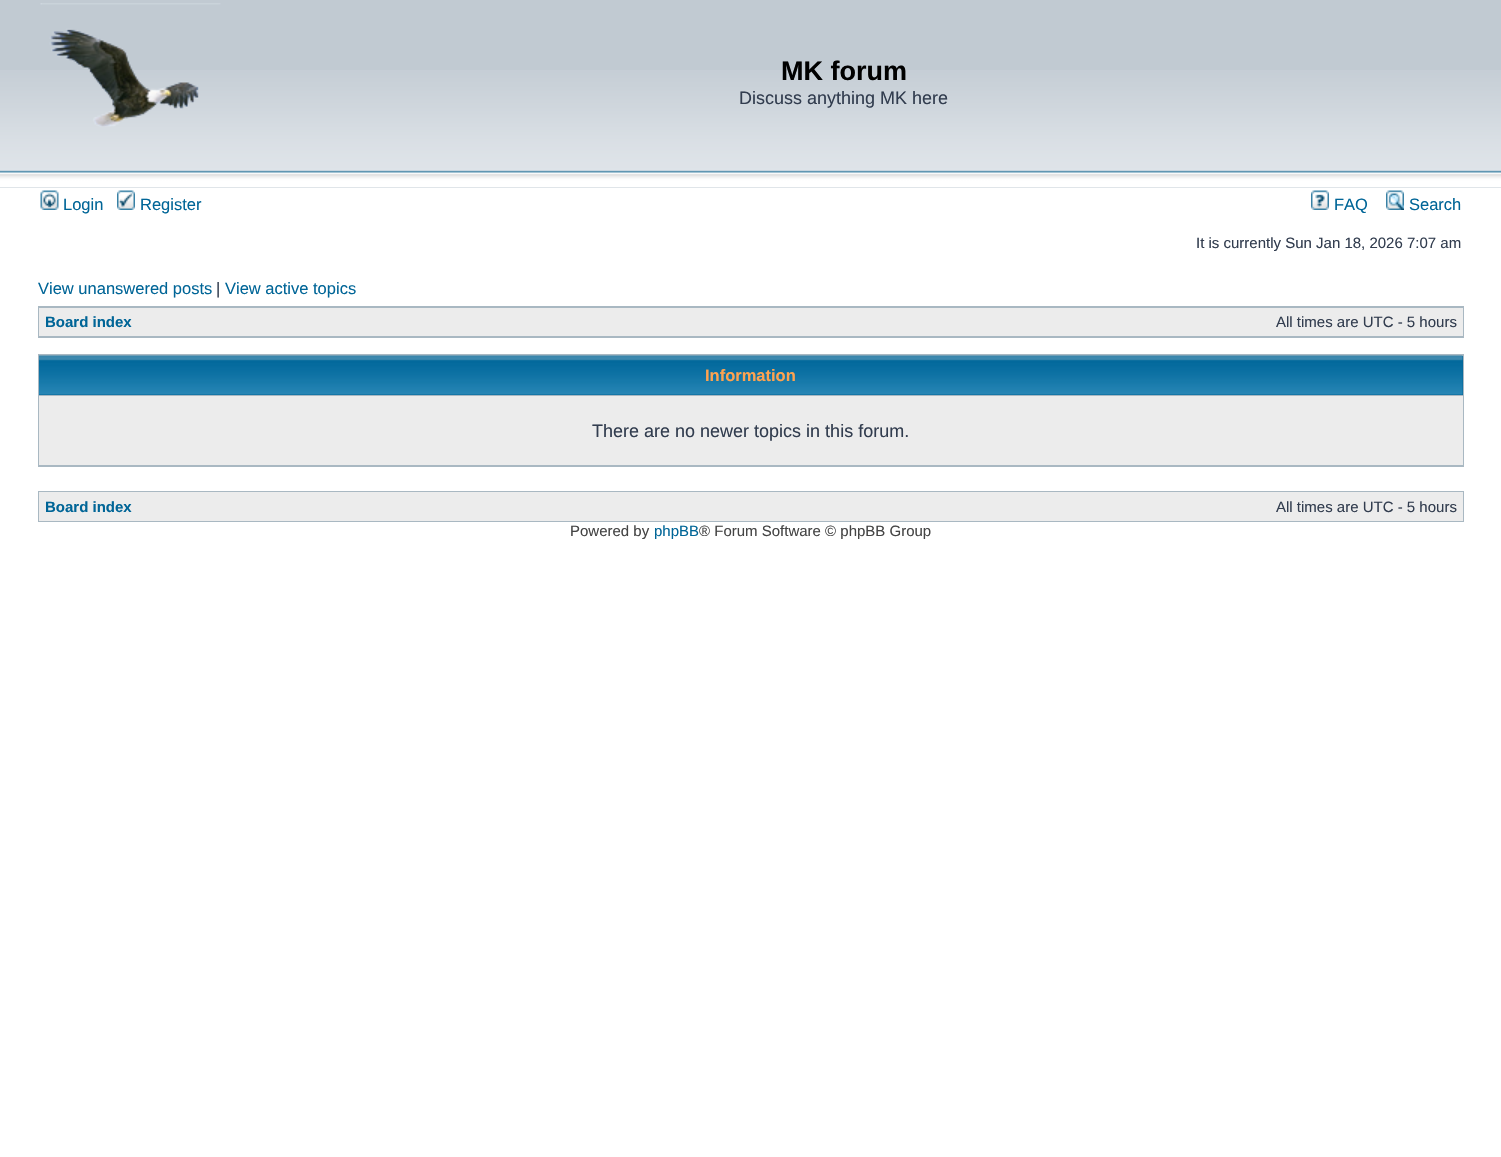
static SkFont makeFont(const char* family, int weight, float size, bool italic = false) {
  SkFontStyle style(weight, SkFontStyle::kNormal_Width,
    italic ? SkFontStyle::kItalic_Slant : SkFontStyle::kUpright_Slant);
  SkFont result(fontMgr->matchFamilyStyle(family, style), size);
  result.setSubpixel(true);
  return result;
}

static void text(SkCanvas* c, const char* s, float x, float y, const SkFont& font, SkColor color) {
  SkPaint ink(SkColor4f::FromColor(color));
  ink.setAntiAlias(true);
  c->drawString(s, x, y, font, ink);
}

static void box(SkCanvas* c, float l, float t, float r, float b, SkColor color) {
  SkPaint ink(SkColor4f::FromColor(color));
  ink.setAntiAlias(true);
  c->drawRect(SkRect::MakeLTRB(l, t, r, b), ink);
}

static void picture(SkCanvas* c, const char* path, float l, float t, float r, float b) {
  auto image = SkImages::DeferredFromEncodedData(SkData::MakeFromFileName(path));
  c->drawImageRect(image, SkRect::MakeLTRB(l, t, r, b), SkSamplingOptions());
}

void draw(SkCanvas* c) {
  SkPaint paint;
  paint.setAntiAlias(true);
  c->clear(0xffffffff);
  box(c, 0, 0, 1501, 188, 0xffc1cad2);
  picture(c, "img_01.png", 0, 70, 1501, 188);
  picture(c, "img_02.png", 40, 3, 221, 127);
  SkFont face1 = makeFont("Liberation Sans", 700, 27);
  text(c, "MK forum", 781, 80, face1, 0xff000000);
  SkFont face2 = makeFont("Liberation Sans", 400, 18);
  text(c, "Discuss anything MK here", 739, 104, face2, 0xff323d4f);
  picture(c, "img_03.png", 40, 190, 59, 210);
  SkFont face3 = makeFont("Liberation Sans", 400, 16.5f);
  text(c, "Login", 63, 210, face3, 0xff006597);
  picture(c, "img_04.png", 117, 190, 135, 210);
  text(c, "Register", 140, 210, face3, 0xff006597);
  picture(c, "img_05.png", 1311, 190, 1329, 210);
  text(c, "FAQ", 1334, 210, face3, 0xff006597);
  picture(c, "img_06.png", 1386, 190, 1404, 210);
  text(c, "Search", 1409, 210, face3, 0xff006597);
  SkFont face4 = makeFont("Liberation Sans", 400, 15);
  text(c, "It is currently Sun Jan 18, 2026 7:07 am", 1196, 248, face4, 0xff323d4f);
  text(c, "View unanswered posts", 38, 294, face3, 0xff006597);
  text(c, "|", 216, 294, face3, 0xff323d4f);
  text(c, "View active topics", 225, 294, face3, 0xff006597);
  box(c, 38, 306, 1464, 338, 0xffa9b8c2);
  box(c, 39, 308, 1463, 336, 0xffececec);
  SkFont face5 = makeFont("Liberation Sans", 700, 15);
  text(c, "Board index", 45, 327, face5, 0xff006597);
  text(c, "All times are UTC - 5 hours", 1276, 327, face4, 0xff323d4f);
  box(c, 38, 354, 1464, 467, 0xffa9b8c2);
  box(c, 39, 356, 1463, 395, 0xff006699);
  picture(c, "img_07.png", 39, 355, 1463, 395);
  SkFont face6 = makeFont("Liberation Sans", 700, 16.5f);
  text(c, "Information", 705, 381, face6, 0xffffa34f);
  box(c, 39, 396, 1463, 465, 0xffececec);
  text(c, "There are no newer topics in this forum.", 592, 437, face2, 0xff323d4f);
  box(c, 38, 491, 1464, 522, 0xffa9b8c2);
  box(c, 39, 492, 1463, 521, 0xffececec);
  text(c, "Board index", 45, 512, face5, 0xff006597);
  text(c, "All times are UTC - 5 hours", 1276, 512, face4, 0xff323d4f);
  text(c, "Powered by", 570, 536, face4, 0xff444444);
  text(c, "phpBB", 654, 536, face4, 0xff006597);
  text(c, "® Forum Software © phpBB Group", 699, 536, face4, 0xff444444);
}
